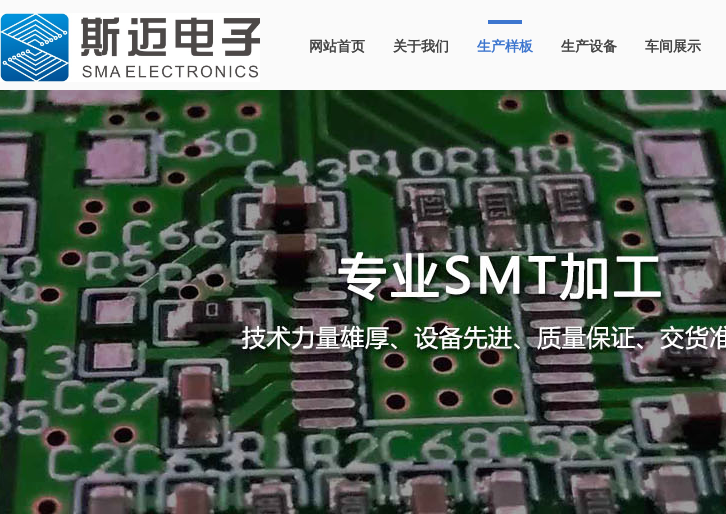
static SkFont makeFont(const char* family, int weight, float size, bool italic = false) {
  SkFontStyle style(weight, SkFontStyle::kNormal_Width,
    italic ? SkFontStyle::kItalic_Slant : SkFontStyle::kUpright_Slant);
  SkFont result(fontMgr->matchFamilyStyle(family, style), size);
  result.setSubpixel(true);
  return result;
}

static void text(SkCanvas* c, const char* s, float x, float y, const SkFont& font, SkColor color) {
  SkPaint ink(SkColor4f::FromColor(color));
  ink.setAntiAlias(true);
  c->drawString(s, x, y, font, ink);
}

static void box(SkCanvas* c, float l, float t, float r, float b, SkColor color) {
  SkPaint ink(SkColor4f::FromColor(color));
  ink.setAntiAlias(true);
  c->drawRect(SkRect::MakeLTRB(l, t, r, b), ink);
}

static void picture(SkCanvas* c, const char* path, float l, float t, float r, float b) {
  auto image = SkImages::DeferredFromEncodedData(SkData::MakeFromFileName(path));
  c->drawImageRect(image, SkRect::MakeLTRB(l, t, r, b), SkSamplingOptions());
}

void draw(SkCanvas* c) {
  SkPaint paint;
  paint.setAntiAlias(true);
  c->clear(0xfffafafa);
  picture(c, "img_01.png", 0, 13, 260, 82);
  SkFont face1 = makeFont("WenQuanYi Zen Hei", 700, 14);
  text(c, "网站首页", 309, 51, face1, 0xff434343);
  text(c, "关于我们", 393, 51, face1, 0xff434343);
  box(c, 488, 20, 522, 24, 0xff3d76cf);
  text(c, "生产样板", 477, 51, face1, 0xff3d76cf);
  text(c, "生产设备", 561, 51, face1, 0xff434343);
  text(c, "车间展示", 645, 51, face1, 0xff434343);
  picture(c, "img_02.png", 0, 90, 726, 514);
}
